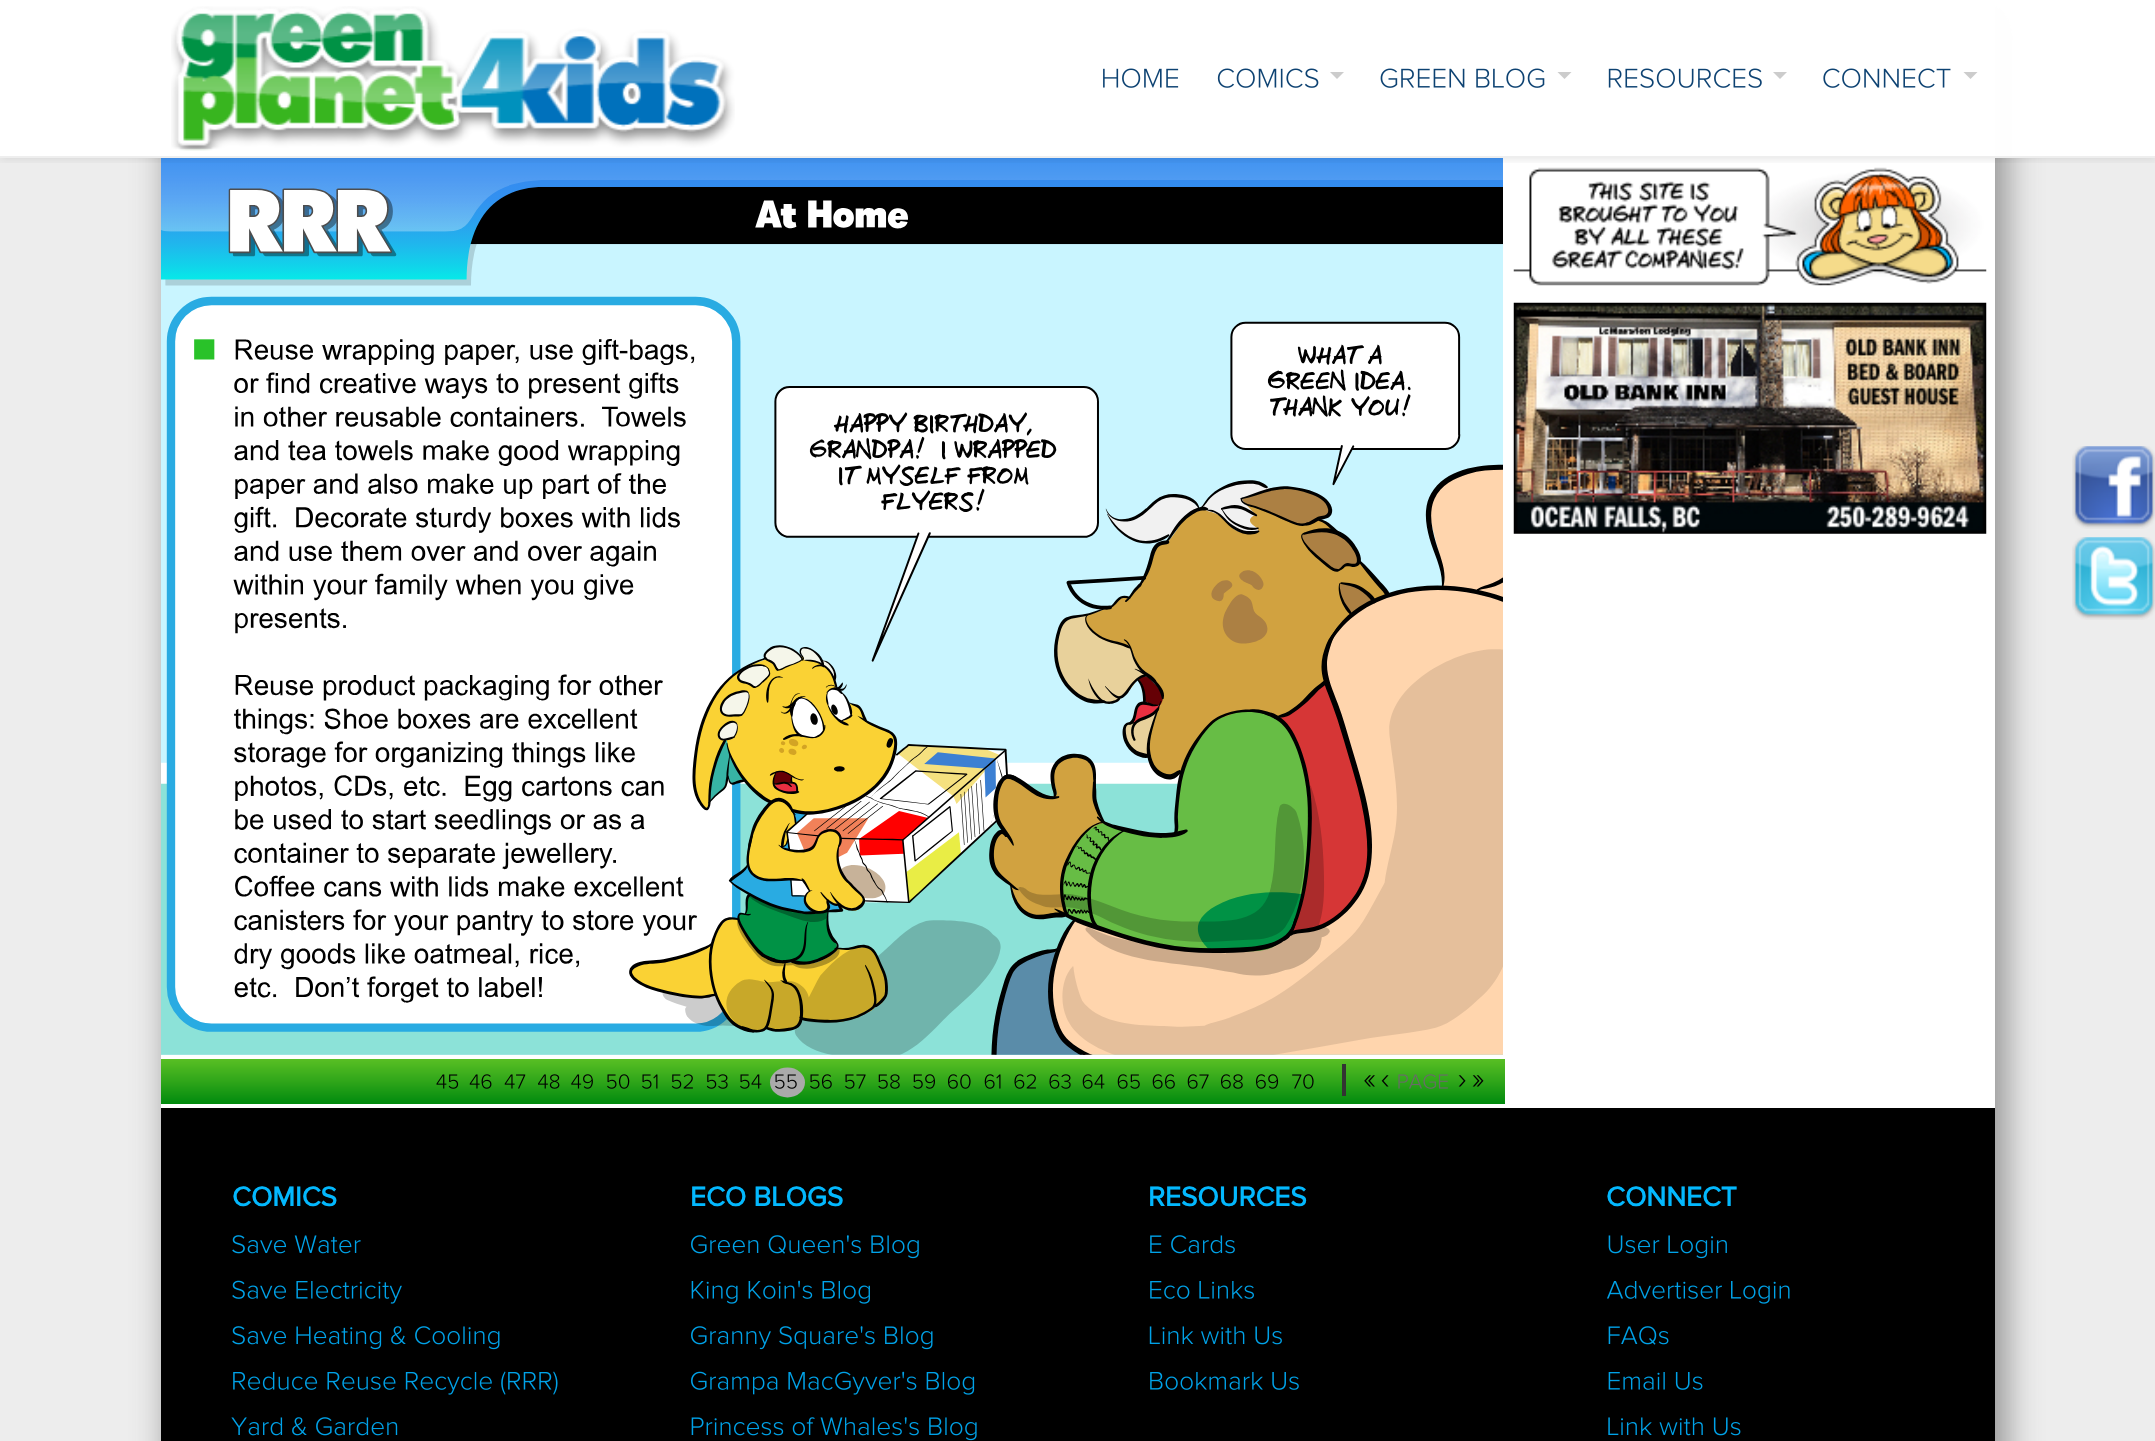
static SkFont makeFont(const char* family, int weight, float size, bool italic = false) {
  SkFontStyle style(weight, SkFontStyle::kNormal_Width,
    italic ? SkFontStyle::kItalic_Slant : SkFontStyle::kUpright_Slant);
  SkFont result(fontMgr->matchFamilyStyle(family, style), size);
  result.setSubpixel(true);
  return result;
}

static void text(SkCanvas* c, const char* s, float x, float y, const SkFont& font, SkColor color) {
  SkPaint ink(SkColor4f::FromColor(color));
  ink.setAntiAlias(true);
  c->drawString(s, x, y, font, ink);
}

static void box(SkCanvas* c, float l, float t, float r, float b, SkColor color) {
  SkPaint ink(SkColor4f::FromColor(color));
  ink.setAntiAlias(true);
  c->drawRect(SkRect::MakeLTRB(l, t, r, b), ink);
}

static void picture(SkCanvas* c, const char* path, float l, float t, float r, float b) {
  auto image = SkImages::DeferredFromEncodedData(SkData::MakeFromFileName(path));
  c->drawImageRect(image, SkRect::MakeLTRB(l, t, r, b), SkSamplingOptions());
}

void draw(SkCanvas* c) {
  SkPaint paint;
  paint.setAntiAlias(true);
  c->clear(0xffededed);
  paint.setColor(0x8c444444);
  paint.setMaskFilter(SkMaskFilter::MakeBlur(kNormal_SkBlurStyle, 16.5f));
  c->drawRect(SkRect::MakeLTRB(168, 7, 2006, 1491), paint);
  paint.setMaskFilter(nullptr);
  box(c, 161, 0, 1995, 1108, 0xffffffff);
  picture(c, "img_07.png", 161, 158, 1503, 1055);
  picture(c, "img_39.png", 1513, 167, 1987, 534);
  c->save();
  c->clipRect(SkRect::MakeLTRB(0, 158, 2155, 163));
  paint.setColor(0x1a000000);
  paint.setMaskFilter(SkMaskFilter::MakeBlur(kNormal_SkBlurStyle, 4.5f));
  c->drawRect(SkRect::MakeLTRB(0, 2, 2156, 159), paint);
  paint.setMaskFilter(nullptr);
  c->restore();
  box(c, 0, 0, 2155, 156, 0xfaffffff);
  box(c, 0, 156, 2155, 158, 0xffeeeeee);
  picture(c, "img_01.png", 171, 6, 735, 151);
  picture(c, "img_02.png", 1103, 68, 1179, 88);
  picture(c, "img_03.png", 1217, 68, 1319, 88);
  paint.setColor(0xffcccccc);
  c->drawPath(SkPathBuilder().moveTo(1330, 72).lineTo(1344, 72).lineTo(1337, 79).close().detach(), paint);
  picture(c, "img_04.png", 1380, 68, 1545, 88);
  c->drawPath(SkPathBuilder().moveTo(1557.5f, 72).lineTo(1571.5f, 72).lineTo(1564.5f, 79).close().detach(), paint);
  picture(c, "img_05.png", 1608, 68, 1762, 88);
  c->drawPath(SkPathBuilder().moveTo(1773, 72).lineTo(1787, 72).lineTo(1780, 79).close().detach(), paint);
  picture(c, "img_06.png", 1823, 68, 1951, 88);
  c->drawPath(SkPathBuilder().moveTo(1963.5f, 72).lineTo(1977.5f, 72).lineTo(1970.5f, 79).close().detach(), paint);
  {
    const SkColor colors[] = {0xff59bf24, 0xff2ea519, 0xff008a0e};
    const float stops[] = {0, 0.51f, 1};
    const SkPoint ends[] = {{833, 1059}, {833, 1104}};
    paint.setShader(SkGradientShader::MakeLinear(ends, colors, stops, 3, SkTileMode::kClamp));
    paint.setAlpha(255);
  }
  c->drawRect(SkRect::MakeLTRB(161, 1059, 1505, 1104), paint);
  picture(c, "img_08.png", 436, 1074, 459, 1089);
  picture(c, "img_09.png", 469, 1074, 492, 1089);
  picture(c, "img_10.png", 504, 1074, 526, 1089);
  picture(c, "img_11.png", 538, 1074, 560, 1089);
  picture(c, "img_12.png", 571, 1074, 593, 1089);
  picture(c, "img_13.png", 607, 1074, 630, 1089);
  picture(c, "img_14.png", 642, 1074, 658, 1089);
  picture(c, "img_15.png", 671, 1074, 693, 1089);
  picture(c, "img_16.png", 706, 1074, 728, 1089);
  picture(c, "img_17.png", 740, 1074, 762, 1089);
  paint.setShader(nullptr);
  paint.setColor(0xffaaaaaa);
  c->drawOval(SkRect::MakeLTRB(770, 1067.5f, 805, 1097.5f), paint);
  box(c, 1342, 1064, 1346, 1096, 0xff333333);
  picture(c, "img_18.png", 775, 1074, 797, 1089);
  picture(c, "img_19.png", 810, 1074, 832, 1089);
  picture(c, "img_20.png", 845, 1074, 866, 1089);
  picture(c, "img_21.png", 878, 1074, 900, 1089);
  picture(c, "img_22.png", 913, 1074, 935, 1089);
  picture(c, "img_23.png", 948, 1074, 971, 1089);
  picture(c, "img_24.png", 984, 1074, 1001, 1089);
  picture(c, "img_25.png", 1014, 1074, 1036, 1089);
  picture(c, "img_26.png", 1049, 1074, 1071, 1089);
  picture(c, "img_27.png", 1082, 1074, 1105, 1089);
  picture(c, "img_28.png", 1117, 1074, 1140, 1089);
  picture(c, "img_29.png", 1152, 1074, 1175, 1089);
  picture(c, "img_30.png", 1187, 1074, 1209, 1089);
  picture(c, "img_31.png", 1221, 1074, 1243, 1089);
  picture(c, "img_32.png", 1256, 1074, 1279, 1089);
  picture(c, "img_33.png", 1292, 1074, 1314, 1089);
  picture(c, "img_34.png", 1364, 1075, 1375, 1087);
  picture(c, "img_35.png", 1381, 1075, 1389, 1087);
  picture(c, "img_36.png", 1398, 1074, 1448, 1089);
  picture(c, "img_37.png", 1458, 1075, 1466, 1087);
  picture(c, "img_38.png", 1472, 1075, 1484, 1087);
  picture(c, "img_40.png", 2072, 446, 2155, 529);
  picture(c, "img_41.png", 2072, 537, 2155, 620);
  box(c, 161, 1108, 1995, 1441, 0xff000000);
  SkFont face1 = makeFont("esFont", 700, 28);
  text(c, "COMICS", 232, 1206, face1, 0xff03b8fe);
  picture(c, "img_42.png", 232, 1235, 361, 1254);
  picture(c, "img_43.png", 232, 1280, 402, 1304);
  picture(c, "img_44.png", 232, 1326, 500, 1350);
  picture(c, "img_45.png", 233, 1371, 558, 1395);
  picture(c, "img_46.png", 231, 1417, 398, 1436);
  text(c, "ECO BLOGS", 690, 1206, face1, 0xff03b8fe);
  picture(c, "img_47.png", 691, 1235, 919, 1259);
  picture(c, "img_48.png", 691, 1280, 870, 1304);
  picture(c, "img_49.png", 691, 1326, 933, 1350);
  picture(c, "img_50.png", 691, 1371, 975, 1395);
  picture(c, "img_51.png", 691, 1417, 977, 1441);
  text(c, "RESOURCES", 1148, 1206, face1, 0xff03b8fe);
  picture(c, "img_52.png", 1150, 1235, 1235, 1254);
  picture(c, "img_53.png", 1150, 1281, 1254, 1299);
  picture(c, "img_54.png", 1149, 1326, 1282, 1345);
  picture(c, "img_55.png", 1150, 1372, 1299, 1390);
  text(c, "CONNECT", 1606, 1206, face1, 0xff03b8fe);
  picture(c, "img_56.png", 1608, 1235, 1727, 1259);
  picture(c, "img_57.png", 1607, 1281, 1790, 1304);
  picture(c, "img_58.png", 1608, 1326, 1669, 1345);
  picture(c, "img_59.png", 1608, 1372, 1703, 1390);
  picture(c, "img_60.png", 1608, 1417, 1741, 1436);
}
